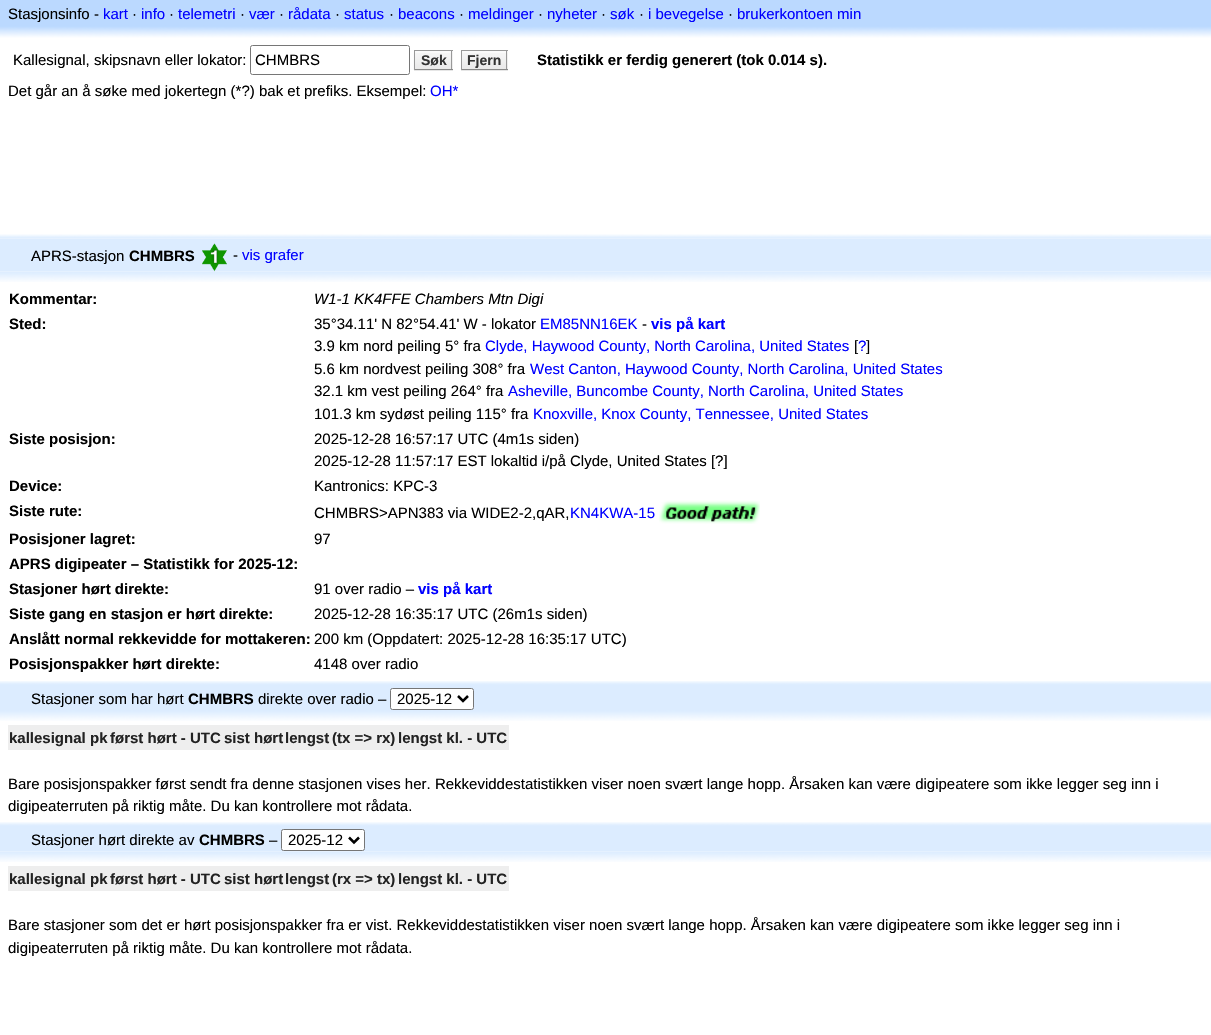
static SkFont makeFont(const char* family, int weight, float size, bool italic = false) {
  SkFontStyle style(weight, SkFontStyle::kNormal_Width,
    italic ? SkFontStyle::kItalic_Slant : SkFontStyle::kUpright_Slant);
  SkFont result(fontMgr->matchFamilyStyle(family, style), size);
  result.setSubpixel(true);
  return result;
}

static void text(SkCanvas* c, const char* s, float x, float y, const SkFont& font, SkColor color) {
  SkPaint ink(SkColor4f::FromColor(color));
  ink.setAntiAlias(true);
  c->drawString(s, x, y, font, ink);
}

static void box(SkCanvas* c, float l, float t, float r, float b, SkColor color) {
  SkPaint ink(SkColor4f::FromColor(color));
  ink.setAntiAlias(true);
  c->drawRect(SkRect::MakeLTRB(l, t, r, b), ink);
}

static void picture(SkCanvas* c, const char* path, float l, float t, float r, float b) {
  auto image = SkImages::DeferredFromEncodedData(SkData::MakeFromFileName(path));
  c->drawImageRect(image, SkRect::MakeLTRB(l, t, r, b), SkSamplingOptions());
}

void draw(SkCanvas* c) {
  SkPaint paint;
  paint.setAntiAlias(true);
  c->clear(0xffffffff);
  box(c, 0, 0, 1211, 25, 0xffbbd9ff);
  SkFont face1 = makeFont("Liberation Sans", 400, 15);
  text(c, "Stasjonsinfo -", 8, 19, face1, 0xff000000);
  text(c, "kart", 103, 19, face1, 0xff0000ff);
  text(c, "·", 132, 19, face1, 0xff000000);
  text(c, "info", 141, 19, face1, 0xff0000ff);
  text(c, "·", 169, 19, face1, 0xff000000);
  text(c, "telemetri", 178, 19, face1, 0xff0000ff);
  text(c, "·", 240, 19, face1, 0xff000000);
  text(c, "vær", 249, 19, face1, 0xff0000ff);
  text(c, "·", 279, 19, face1, 0xff000000);
  text(c, "rådata", 288, 19, face1, 0xff0000ff);
  text(c, "·", 335, 19, face1, 0xff000000);
  text(c, "status", 344, 19, face1, 0xff0000ff);
  text(c, "·", 389, 19, face1, 0xff000000);
  text(c, "beacons", 398, 19, face1, 0xff0000ff);
  text(c, "·", 459, 19, face1, 0xff000000);
  text(c, "meldinger", 468, 19, face1, 0xff0000ff);
  text(c, "·", 538, 19, face1, 0xff000000);
  text(c, "nyheter", 547, 19, face1, 0xff0000ff);
  text(c, "·", 601, 19, face1, 0xff000000);
  text(c, "søk", 610, 19, face1, 0xff0000ff);
  text(c, "·", 639, 19, face1, 0xff000000);
  text(c, "i bevegelse", 648, 19, face1, 0xff0000ff);
  text(c, "·", 728, 19, face1, 0xff000000);
  text(c, "brukerkontoen min", 737, 19, face1, 0xff0000ff);
  picture(c, "img_01.png", 0, 25, 1211, 38);
  text(c, "Kallesignal, skipsnavn eller lokator:", 13, 65, face1, 0xff000000);
  paint.setStyle(SkPaint::kStroke_Style);
  paint.setStrokeWidth(1);
  paint.setColor(0xff767676);
  c->drawRoundRect(SkRect::MakeLTRB(250.5f, 45.5f, 409.5f, 74.5f), 2, 2, paint);
  text(c, "CHMBRS", 255, 65, face1, 0xff000000);
  paint.setStyle(SkPaint::kFill_Style);
  paint.setColor(0xffe6e6e6);
  c->drawPath(SkPathBuilder().moveTo(414, 70).lineTo(414, 71).lineTo(453, 71).lineTo(453, 51).lineTo(452.5f, 51).lineTo(452.5f, 70).close().detach(), paint);
  box(c, 415, 51, 453, 69, 0xffeeeeee);
  picture(c, "img_02.png", 413, 51, 453, 70);
  box(c, 414, 50, 453, 51, 0xff999999);
  box(c, 451, 50, 452, 70, 0xff999999);
  box(c, 414, 69, 453, 70, 0xff888888);
  box(c, 414, 50, 415, 70, 0xff999999);
  SkFont face2 = makeFont("Liberation Sans", 700, 14);
  text(c, "Søk", 421, 65, face2, 0xff333333);
  c->drawPath(SkPathBuilder().moveTo(461, 51).lineTo(461, 71).lineTo(508, 71).lineTo(508, 51).lineTo(508, 70).lineTo(461, 70).close().detach(), paint);
  box(c, 462, 51, 508, 69, 0xffeeeeee);
  picture(c, "img_03.png", 462, 51, 508, 69);
  box(c, 461, 50, 508, 51, 0xff999999);
  box(c, 506, 50, 507, 70, 0xff999999);
  box(c, 461, 69, 508, 70, 0xff888888);
  box(c, 461, 50, 462, 70, 0xff999999);
  text(c, "Fjern", 467, 65, face2, 0xff333333);
  SkFont face3 = makeFont("Liberation Sans", 700, 15);
  text(c, "Statistikk er ferdig generert (tok 0.014 s).", 537, 65, face3, 0xff000000);
  text(c, "Det går an å søke med jokertegn (*?) bak et prefiks. Eksempel:", 8, 96, face1, 0xff000000);
  text(c, "OH*", 430, 96, face1, 0xff0000ff);
  picture(c, "img_04.png", 0, 234, 1211, 239);
  box(c, 0, 239, 1211, 271, 0xffdcecff);
  text(c, "APRS-stasjon", 31, 261, face1, 0xff000000);
  text(c, "CHMBRS", 129, 261, face3, 0xff000000);
  picture(c, "img_06.png", 0, 271, 1211, 282);
  picture(c, "img_05.png", 202, 243, 227, 272);
  text(c, "-", 233, 260, face1, 0xff000000);
  text(c, "vis grafer", 242, 260, face1, 0xff0000ff);
  text(c, "Kommentar:", 9, 304, face3, 0xff000000);
  SkFont face4 = makeFont("Liberation Sans", 400, 15, true);
  text(c, "W1-1 KK4FFE Chambers Mtn Digi", 314, 304, face4, 0xff000000);
  text(c, "Sted:", 9, 329, face3, 0xff000000);
  text(c, "35°34.11' N 82°54.41' W - lokator", 314, 329, face1, 0xff000000);
  text(c, "EM85NN16EK", 540, 329, face1, 0xff0000ff);
  text(c, "-", 642, 329, face1, 0xff000000);
  text(c, "vis på kart", 651, 329, face3, 0xff0000ff);
  text(c, "3.9 km nord peiling 5° fra", 314, 351, face1, 0xff000000);
  text(c, "Clyde, Haywood County, North Carolina, United States", 485, 351, face1, 0xff0000ff);
  text(c, "[", 854, 351, face1, 0xff000000);
  text(c, "?", 858, 351, face1, 0xff0000ff);
  text(c, "]", 866, 351, face1, 0xff000000);
  text(c, "5.6 km nordvest peiling 308° fra", 314, 374, face1, 0xff000000);
  text(c, "West Canton, Haywood County, North Carolina, United States", 530, 374, face1, 0xff0000ff);
  text(c, "32.1 km vest peiling 264° fra", 314, 396, face1, 0xff000000);
  text(c, "Asheville, Buncombe County, North Carolina, United States", 508, 396, face1, 0xff0000ff);
  text(c, "101.3 km sydøst peiling 115° fra", 314, 419, face1, 0xff000000);
  text(c, "Knoxville, Knox County, Tennessee, United States", 533, 419, face1, 0xff0000ff);
  text(c, "Siste posisjon:", 9, 444, face3, 0xff000000);
  text(c, "2025-12-28 16:57:17 UTC (4m1s siden)", 314, 444, face1, 0xff000000);
  text(c, "2025-12-28 11:57:17 EST lokaltid i/på Clyde, United States [?]", 314, 466, face1, 0xff000000);
  text(c, "Device:", 9, 491, face3, 0xff000000);
  text(c, "Kantronics: KPC-3", 314, 491, face1, 0xff000000);
  text(c, "Siste rute:", 9, 516, face3, 0xff000000);
  text(c, "CHMBRS>APN383 via WIDE2-2,qAR,", 314, 518, face1, 0xff000000);
  text(c, "KN4KWA-15", 570, 518, face1, 0xff0000ff);
  picture(c, "img_07.png", 659, 500, 760, 524);
  text(c, "Posisjoner lagret:", 9, 544, face3, 0xff000000);
  text(c, "97", 314, 544, face1, 0xff000000);
  text(c, "APRS digipeater – Statistikk for 2025-12:", 9, 569, face3, 0xff000000);
  text(c, "Stasjoner hørt direkte:", 9, 594, face3, 0xff000000);
  text(c, "91 over radio –", 314, 594, face1, 0xff000000);
  text(c, "vis på kart", 418, 594, face3, 0xff0000ff);
  text(c, "Siste gang en stasjon er hørt direkte:", 9, 619, face3, 0xff000000);
  text(c, "2025-12-28 16:35:17 UTC (26m1s siden)", 314, 619, face1, 0xff000000);
  text(c, "Anslått normal rekkevidde for mottakeren:", 9, 644, face3, 0xff000000);
  text(c, "200 km (Oppdatert: 2025-12-28 16:35:17 UTC)", 314, 644, face1, 0xff000000);
  text(c, "Posisjonspakker hørt direkte:", 9, 669, face3, 0xff000000);
  text(c, "4148 over radio", 314, 669, face1, 0xff000000);
  picture(c, "img_08.png", 0, 681, 1211, 685);
  box(c, 0, 685, 1211, 710, 0xffdcecff);
  text(c, "Stasjoner som har hørt", 31, 704, face1, 0xff000000);
  text(c, "CHMBRS", 188, 704, face3, 0xff000000);
  text(c, "direkte over radio –", 258, 704, face1, 0xff000000);
  paint.setColor(0xffffffff);
  c->drawRoundRect(SkRect::MakeLTRB(390.5f, 688.5f, 473.5f, 709.5f), 2, 2, paint);
  paint.setStyle(SkPaint::kStroke_Style);
  paint.setColor(0xff767676);
  c->drawRoundRect(SkRect::MakeLTRB(390.5f, 688.5f, 473.5f, 709.5f), 2, 2, paint);
  paint.setStrokeWidth(2.5f);
  paint.setColor(0xff000000);
  c->drawPath(SkPathBuilder().moveTo(458, 696).lineTo(463, 701).lineTo(468, 696).detach(), paint);
  text(c, "2025-12", 397, 704, face1, 0xff000000);
  picture(c, "img_09.png", 0, 710, 1211, 721);
  box(c, 8, 725, 509, 750, 0xffeeeeee);
  text(c, "kallesignal", 9, 743, face3, 0xff222222);
  text(c, "pk", 90, 743, face3, 0xff222222);
  text(c, "først hørt - UTC", 110, 743, face3, 0xff222222);
  text(c, "sist hørt", 224, 743, face3, 0xff222222);
  text(c, "lengst", 285, 743, face3, 0xff222222);
  text(c, "(tx => rx)", 332, 743, face3, 0xff222222);
  text(c, "lengst kl. - UTC", 398, 743, face3, 0xff222222);
  text(c, "Bare posisjonspakker først sendt fra denne stasjonen vises her. Rekkeviddestatistikken viser noen svært lange hopp. Årsaken kan være digipeatere som ikke legger seg inn i", 8, 789, face1, 0xff000000);
  text(c, "digipeaterruten på riktig måte. Du kan kontrollere mot rådata.", 8, 811, face1, 0xff000000);
  picture(c, "img_10.png", 0, 822, 1211, 826);
  box(c, 0, 826, 1211, 851, 0xffdcecff);
  text(c, "Stasjoner hørt direkte av", 31, 845, face1, 0xff000000);
  text(c, "CHMBRS", 199, 845, face3, 0xff000000);
  text(c, "–", 269, 845, face1, 0xff000000);
  paint.setStyle(SkPaint::kFill_Style);
  paint.setColor(0xffffffff);
  c->drawRoundRect(SkRect::MakeLTRB(281.5f, 829.5f, 364.5f, 850.5f), 2, 2, paint);
  paint.setStyle(SkPaint::kStroke_Style);
  paint.setStrokeWidth(1);
  paint.setColor(0xff767676);
  c->drawRoundRect(SkRect::MakeLTRB(281.5f, 829.5f, 364.5f, 850.5f), 2, 2, paint);
  paint.setStrokeWidth(2.5f);
  paint.setColor(0xff000000);
  c->drawPath(SkPathBuilder().moveTo(349, 837.5f).lineTo(354, 842.5f).lineTo(359, 837.5f).detach(), paint);
  text(c, "2025-12", 288, 845, face1, 0xff000000);
  picture(c, "img_11.png", 0, 851, 1211, 862);
  box(c, 8, 866, 509, 891, 0xffeeeeee);
  text(c, "kallesignal", 9, 884, face3, 0xff222222);
  text(c, "pk", 90, 884, face3, 0xff222222);
  text(c, "først hørt - UTC", 110, 884, face3, 0xff222222);
  text(c, "sist hørt", 224, 884, face3, 0xff222222);
  text(c, "lengst", 285, 884, face3, 0xff222222);
  text(c, "(rx => tx)", 332, 884, face3, 0xff222222);
  text(c, "lengst kl. - UTC", 398, 884, face3, 0xff222222);
  text(c, "Bare stasjoner som det er hørt posisjonspakker fra er vist. Rekkeviddestatistikken viser noen svært lange hopp. Årsaken kan være digipeatere som ikke legger seg inn i", 8, 930, face1, 0xff000000);
  text(c, "digipeaterruten på riktig måte. Du kan kontrollere mot rådata.", 8, 953, face1, 0xff000000);
}
